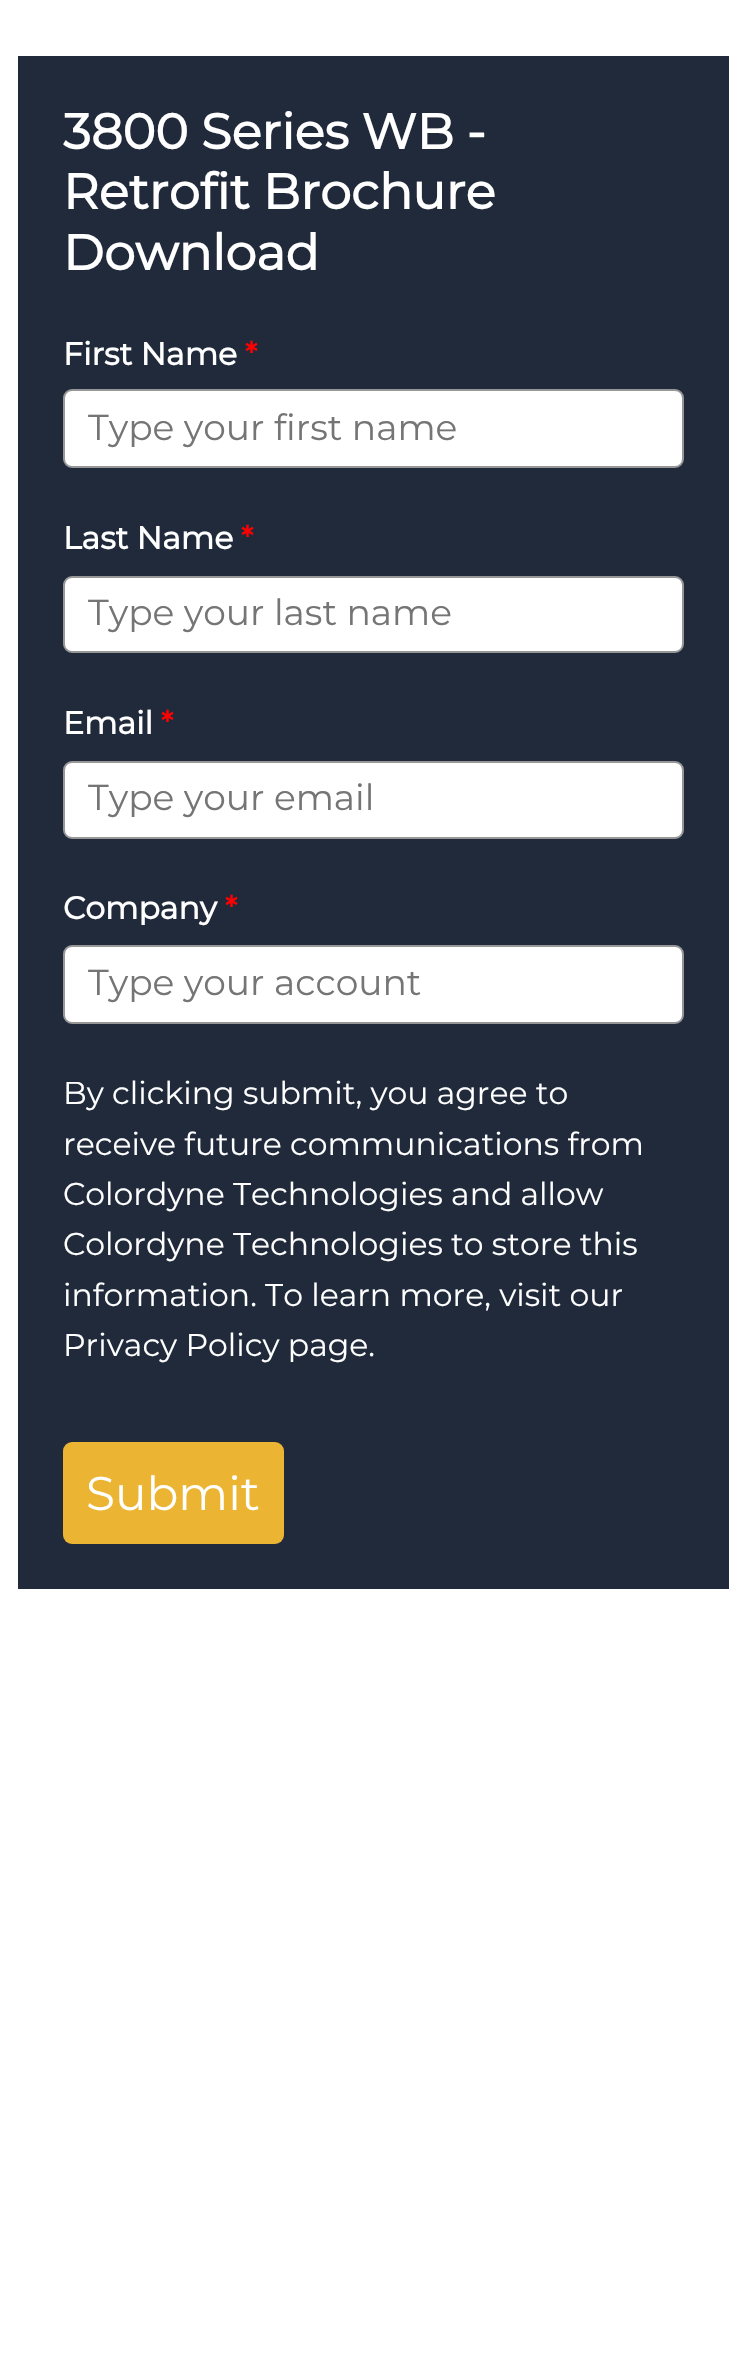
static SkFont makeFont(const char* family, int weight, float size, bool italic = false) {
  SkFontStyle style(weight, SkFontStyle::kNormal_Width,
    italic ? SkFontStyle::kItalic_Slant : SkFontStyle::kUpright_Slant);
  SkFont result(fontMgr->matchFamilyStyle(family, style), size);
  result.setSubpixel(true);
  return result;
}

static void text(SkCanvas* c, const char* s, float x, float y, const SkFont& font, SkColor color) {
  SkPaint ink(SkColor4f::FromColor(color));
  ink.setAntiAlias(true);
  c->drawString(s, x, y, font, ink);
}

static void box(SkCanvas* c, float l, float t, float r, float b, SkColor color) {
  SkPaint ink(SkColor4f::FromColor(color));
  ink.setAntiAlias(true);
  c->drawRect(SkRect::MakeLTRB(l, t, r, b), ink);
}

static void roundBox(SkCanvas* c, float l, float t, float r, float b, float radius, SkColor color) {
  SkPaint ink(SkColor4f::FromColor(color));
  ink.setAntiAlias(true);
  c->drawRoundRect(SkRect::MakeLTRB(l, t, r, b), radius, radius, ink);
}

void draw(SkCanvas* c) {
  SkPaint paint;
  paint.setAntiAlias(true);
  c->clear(0xffffffff);
  box(c, 18, 56, 729, 1589, 0xff202a3b);
  SkFont face1 = makeFont("Montserrat", 700, 49.5f);
  text(c, "3800 Series WB -", 63, 149, face1, 0xffffffff);
  text(c, "Retrofit Brochure", 63, 209, face1, 0xffffffff);
  text(c, "Download", 63, 270, face1, 0xffffffff);
  SkFont face2 = makeFont("Montserrat", 700, 31.5f);
  text(c, "First Name", 63, 365, face2, 0xffffffff);
  text(c, "*", 245, 365, face2, 0xffff0000);
  paint.setColor(0xffffffff);
  c->drawRoundRect(SkRect::MakeLTRB(64, 390, 683, 467), 8, 8, paint);
  paint.setStyle(SkPaint::kStroke_Style);
  paint.setStrokeWidth(2);
  paint.setColor(0xff979797);
  c->drawRoundRect(SkRect::MakeLTRB(64, 390, 683, 467), 8, 8, paint);
  SkFont face3 = makeFont("Montserrat", 100, 36);
  text(c, "Type your first name", 88, 440, face3, 0xff757575);
  text(c, "Last Name", 63, 549, face2, 0xffffffff);
  text(c, "*", 241, 549, face2, 0xffff0000);
  paint.setStyle(SkPaint::kFill_Style);
  paint.setColor(0xffffffff);
  c->drawRoundRect(SkRect::MakeLTRB(64, 577, 683, 652), 8, 8, paint);
  paint.setStyle(SkPaint::kStroke_Style);
  paint.setColor(0xff979797);
  c->drawRoundRect(SkRect::MakeLTRB(64, 577, 683, 652), 8, 8, paint);
  text(c, "Type your last name", 88, 625, face3, 0xff757575);
  text(c, "Email", 63, 734, face2, 0xffffffff);
  text(c, "*", 161, 734, face2, 0xffff0000);
  paint.setStyle(SkPaint::kFill_Style);
  paint.setColor(0xffffffff);
  c->drawRoundRect(SkRect::MakeLTRB(64, 762, 683, 838), 8, 8, paint);
  paint.setStyle(SkPaint::kStroke_Style);
  paint.setColor(0xff979797);
  c->drawRoundRect(SkRect::MakeLTRB(64, 762, 683, 838), 8, 8, paint);
  text(c, "Type your email", 88, 810, face3, 0xff757575);
  text(c, "Company", 63, 919, face2, 0xffffffff);
  text(c, "*", 225, 919, face2, 0xffff0000);
  paint.setStyle(SkPaint::kFill_Style);
  paint.setColor(0xffffffff);
  c->drawRoundRect(SkRect::MakeLTRB(64, 946, 683, 1023), 8, 8, paint);
  paint.setStyle(SkPaint::kStroke_Style);
  paint.setColor(0xff979797);
  c->drawRoundRect(SkRect::MakeLTRB(64, 946, 683, 1023), 8, 8, paint);
  text(c, "Type your account", 88, 995, face3, 0xff757575);
  SkFont face4 = makeFont("Montserrat", 100, 31.5f);
  text(c, "By clicking submit, you agree to", 63, 1104, face4, 0xffffffff);
  text(c, "receive future communications from", 63, 1155, face4, 0xffffffff);
  text(c, "Colordyne Technologies and allow", 63, 1205, face4, 0xffffffff);
  text(c, "Colordyne Technologies to store this", 63, 1255, face4, 0xffffffff);
  text(c, "information. To learn more, visit our", 63, 1306, face4, 0xffffffff);
  text(c, "Privacy Policy page.", 63, 1356, face4, 0xffffffff);
  roundBox(c, 63, 1442, 284, 1544, 9, 0xffebb533);
  SkFont face5 = makeFont("Montserrat", 100, 47);
  text(c, "Submit", 86, 1510, face5, 0xffffffff);
}
